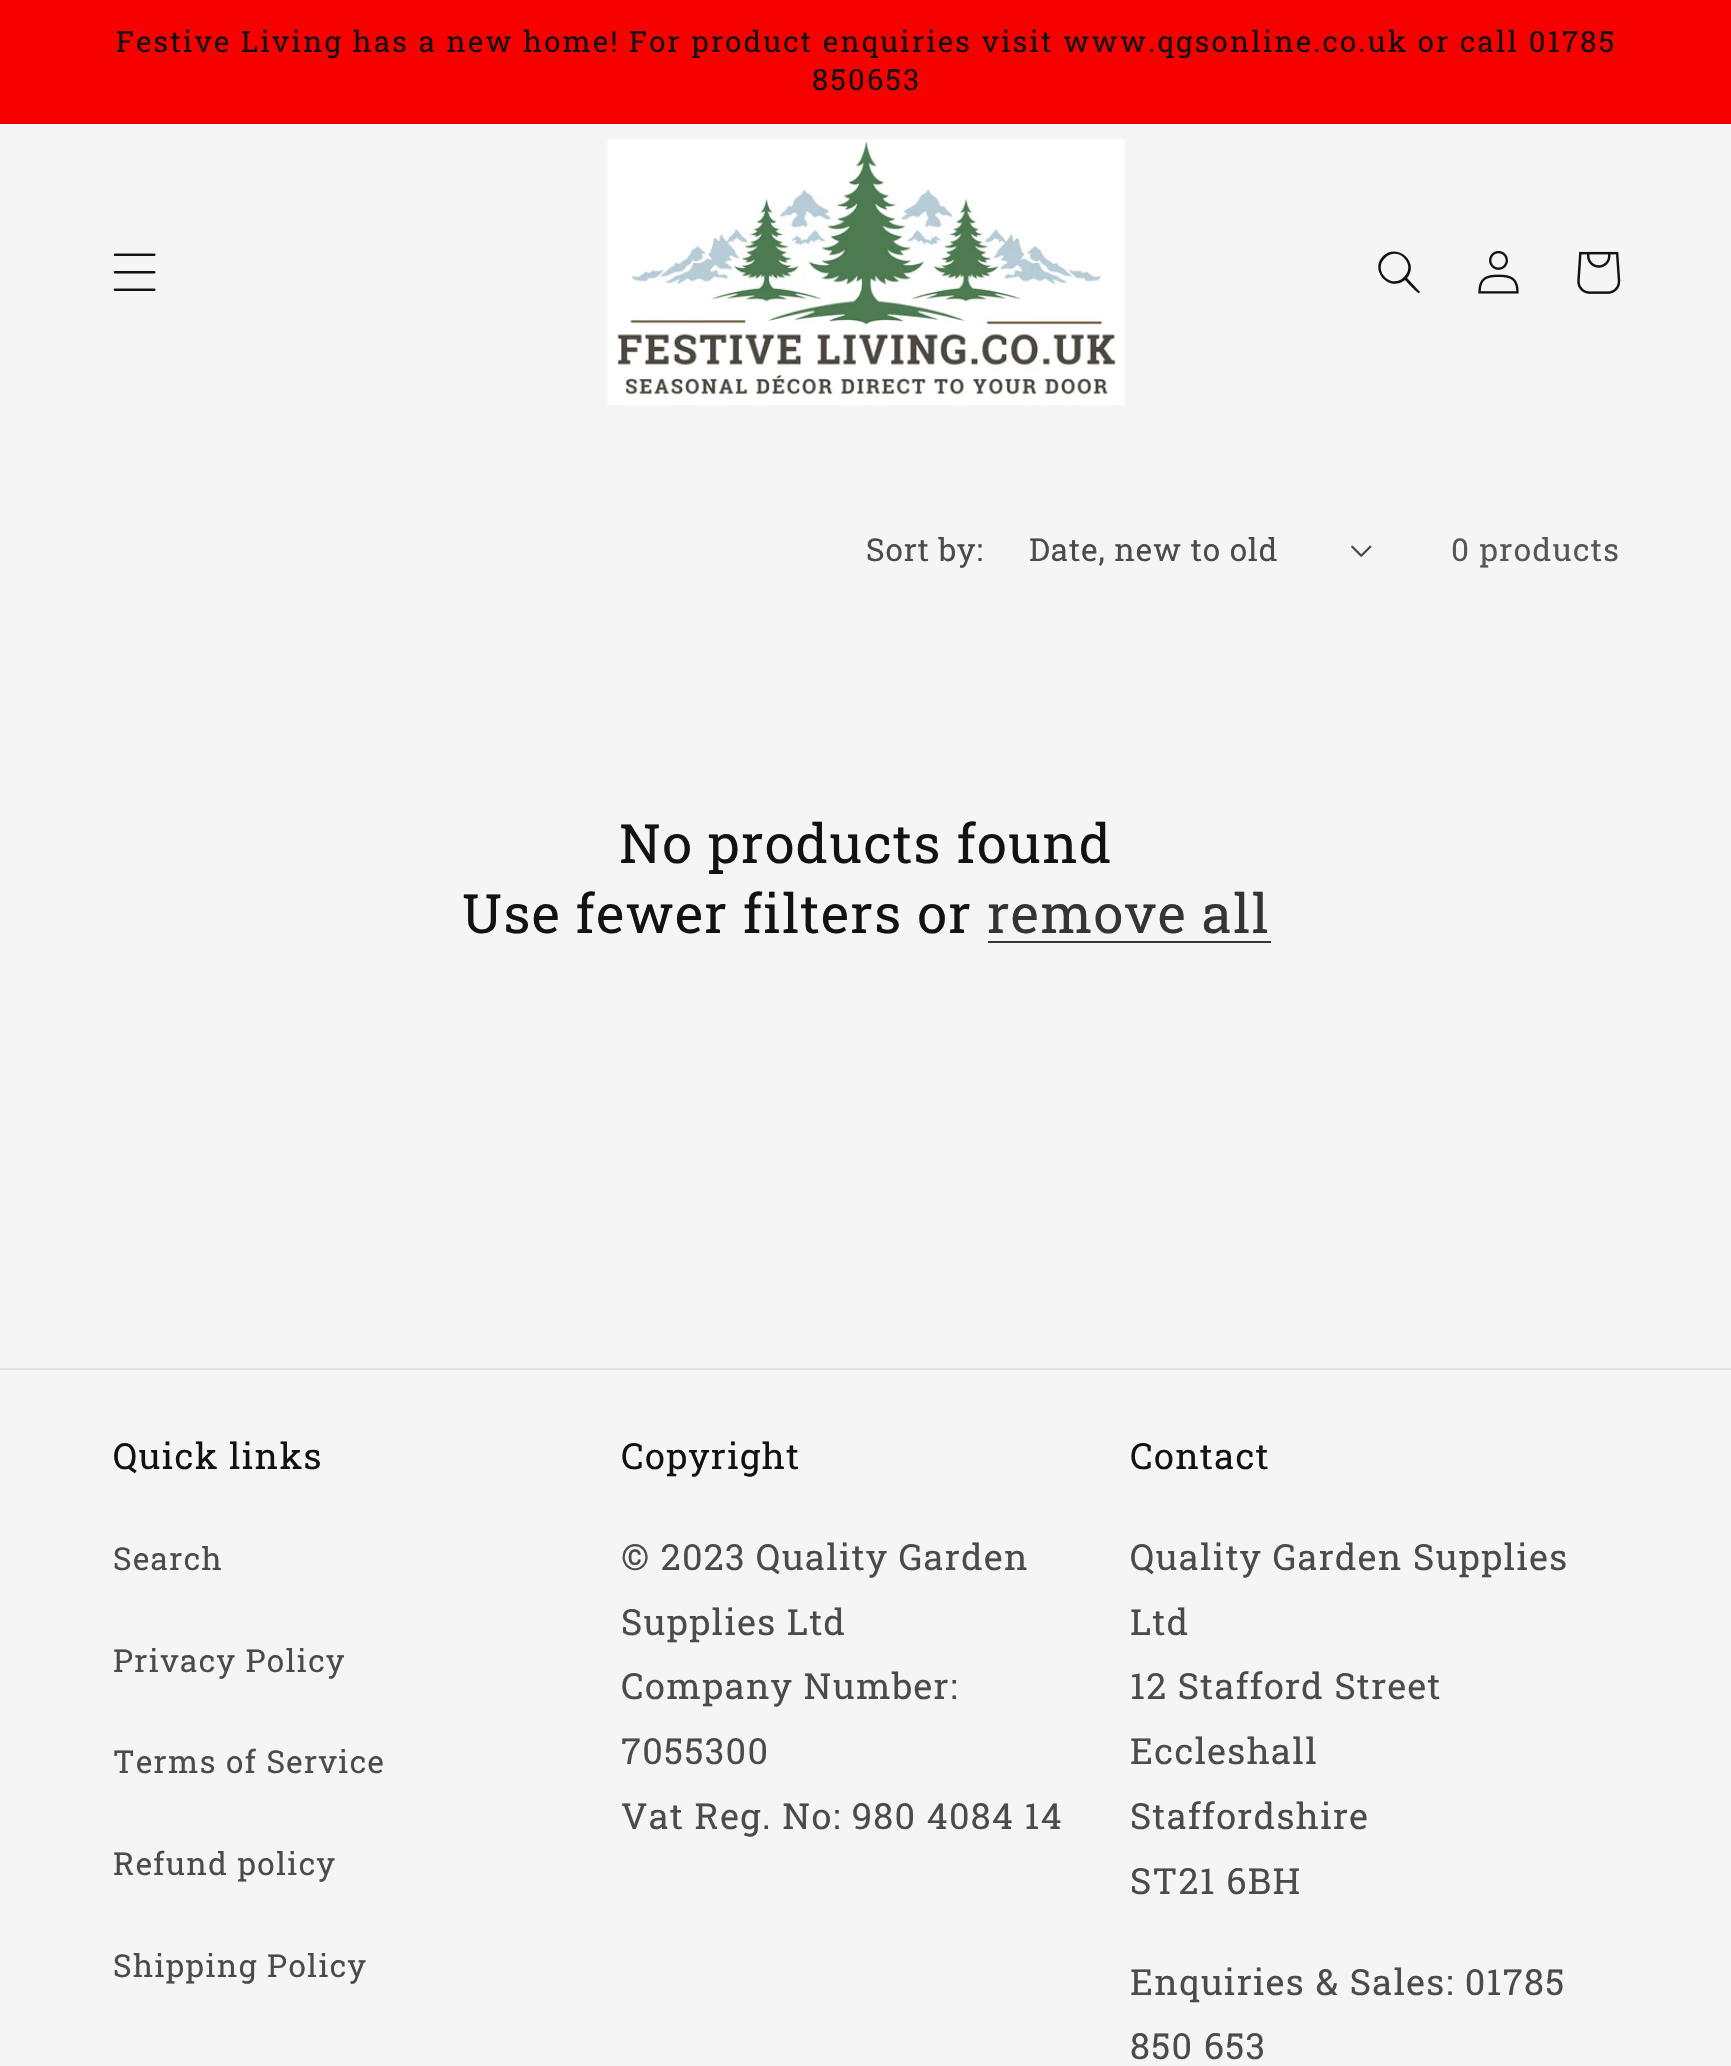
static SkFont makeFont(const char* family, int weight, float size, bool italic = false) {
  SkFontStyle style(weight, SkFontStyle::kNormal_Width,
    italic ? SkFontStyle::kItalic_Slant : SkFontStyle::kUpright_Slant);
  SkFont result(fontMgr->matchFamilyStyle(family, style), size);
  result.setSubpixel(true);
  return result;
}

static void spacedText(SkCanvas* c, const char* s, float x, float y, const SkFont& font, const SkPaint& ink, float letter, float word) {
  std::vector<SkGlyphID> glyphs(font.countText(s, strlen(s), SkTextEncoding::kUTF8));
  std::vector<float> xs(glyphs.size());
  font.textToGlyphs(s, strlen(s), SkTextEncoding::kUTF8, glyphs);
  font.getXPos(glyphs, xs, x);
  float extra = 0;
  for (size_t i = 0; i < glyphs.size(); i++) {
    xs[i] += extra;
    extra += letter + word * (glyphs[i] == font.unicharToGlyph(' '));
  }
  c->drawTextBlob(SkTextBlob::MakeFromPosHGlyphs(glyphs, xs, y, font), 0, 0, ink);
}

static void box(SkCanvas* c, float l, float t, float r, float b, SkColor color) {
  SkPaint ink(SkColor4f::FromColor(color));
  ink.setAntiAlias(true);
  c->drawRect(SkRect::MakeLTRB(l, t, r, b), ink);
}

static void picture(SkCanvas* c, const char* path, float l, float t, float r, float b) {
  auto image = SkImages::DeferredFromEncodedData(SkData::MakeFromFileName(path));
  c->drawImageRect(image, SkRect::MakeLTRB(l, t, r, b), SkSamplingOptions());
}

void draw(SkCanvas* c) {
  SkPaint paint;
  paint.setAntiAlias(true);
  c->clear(0xfff5f5f5);
  box(c, 0, 0, 1731, 122, 0xfff70000);
  box(c, 0, 122, 1731, 124, 0xffe50101);
  SkFont face1 = makeFont("Roboto Slab", 400, 29.25f);
  paint.setColor(0xff121212);
  spacedText(c, "Festive Living has a new home! For product enquiries visit www.qgsonline.co.uk or call 01785", 116, 52, face1, paint, 2.25f, 0);
  spacedText(c, "850653", 812, 90, face1, paint, 2.25f, 0);
  picture(c, "img_01.png", 113, 253, 156, 291);
  picture(c, "img_02.png", 607, 139, 1125, 405);
  c->drawPath(SkPathBuilder(SkPathFillType::kEvenOdd).moveTo(1404, 277).cubicTo(1392, 290, 1372, 271, 1385, 258).cubicTo(1398, 245, 1417, 265, 1404, 277).close().moveTo(1405, 280).cubicTo(1389, 293, 1369, 270, 1383, 256).cubicTo(1398, 242, 1420, 263, 1407, 278).lineTo(1420, 292).lineTo(1419, 293).cubicTo(1418, 294, 1407, 282, 1405, 280).close().detach(), paint);
  picture(c, "img_03.png", 1478, 250, 1519, 294);
  picture(c, "img_04.png", 1577, 251, 1621, 294);
  SkFont face2 = makeFont("Roboto Slab", 400, 31.5f);
  paint.setColor(0xff4b4b4b);
  spacedText(c, "Sort by:", 866, 561, face2, paint, 0.9f, 0);
  spacedText(c, "Date, new to old", 1029, 561, face2, paint, 0.9f, 0);
  picture(c, "img_05.png", 1351, 545, 1372, 557);
  paint.setColor(0xff565656);
  spacedText(c, "0 products", 1451, 561, face2, paint, 1.35f, 0);
  SkFont face3 = makeFont("Roboto Slab", 400, 54);
  paint.setColor(0xff121212);
  spacedText(c, "No products found", 619, 863, face3, paint, 1.35f, 0);
  spacedText(c, "Use fewer filters or", 462, 933, face3, paint, 1.35f, 0);
  paint.setColor(0xff343434);
  spacedText(c, "remove all", 987, 933, face3, paint, 1.35f, 0);
  box(c, 988, 941, 1271, 943, 0xff343434);
  box(c, 0, 1368, 1731, 1370, 0xffe3e3e3);
  SkFont face4 = makeFont("Roboto Slab", 400, 36);
  paint.setColor(0xff121212);
  spacedText(c, "Quick links", 113, 1469, face4, paint, 1.35f, 0);
  paint.setColor(0xff4b4b4b);
  spacedText(c, "Search", 113, 1570, face2, paint, 1.35f, 0);
  spacedText(c, "Privacy Policy", 113, 1672, face2, paint, 1.35f, 0);
  spacedText(c, "Terms of Service", 113, 1773, face2, paint, 1.35f, 0);
  spacedText(c, "Refund policy", 113, 1875, face2, paint, 1.35f, 0);
  spacedText(c, "Shipping Policy", 113, 1977, face2, paint, 1.35f, 0);
  paint.setColor(0xff121212);
  spacedText(c, "Copyright", 621, 1469, face4, paint, 1.35f, 0);
  paint.setColor(0xff4b4b4b);
  spacedText(c, "© 2023 Quality Garden", 621, 1570, face4, paint, 1.35f, 0);
  spacedText(c, "Supplies Ltd", 621, 1635, face4, paint, 1.35f, 0);
  spacedText(c, "Company Number:", 621, 1699, face4, paint, 1.35f, 0);
  spacedText(c, "7055300", 621, 1764, face4, paint, 1.35f, 0);
  spacedText(c, "Vat Reg. No: 980 4084 14", 621, 1829, face4, paint, 1.35f, 0);
  paint.setColor(0xff121212);
  spacedText(c, "Contact", 1130, 1469, face4, paint, 1.35f, 0);
  paint.setColor(0xff4b4b4b);
  spacedText(c, "Quality Garden Supplies", 1130, 1570, face4, paint, 1.35f, 0);
  spacedText(c, "Ltd", 1130, 1635, face4, paint, 1.35f, 0);
  spacedText(c, "12 Stafford Street", 1130, 1699, face4, paint, 1.35f, 0);
  spacedText(c, "Eccleshall", 1130, 1764, face4, paint, 1.35f, 0);
  spacedText(c, "Staffordshire", 1130, 1829, face4, paint, 1.35f, 0);
  spacedText(c, "ST21 6BH", 1130, 1894, face4, paint, 1.35f, 0);
  spacedText(c, "Enquiries & Sales: 01785", 1130, 1995, face4, paint, 1.35f, 0);
  spacedText(c, "850 653", 1130, 2059, face4, paint, 1.35f, 0);
}
